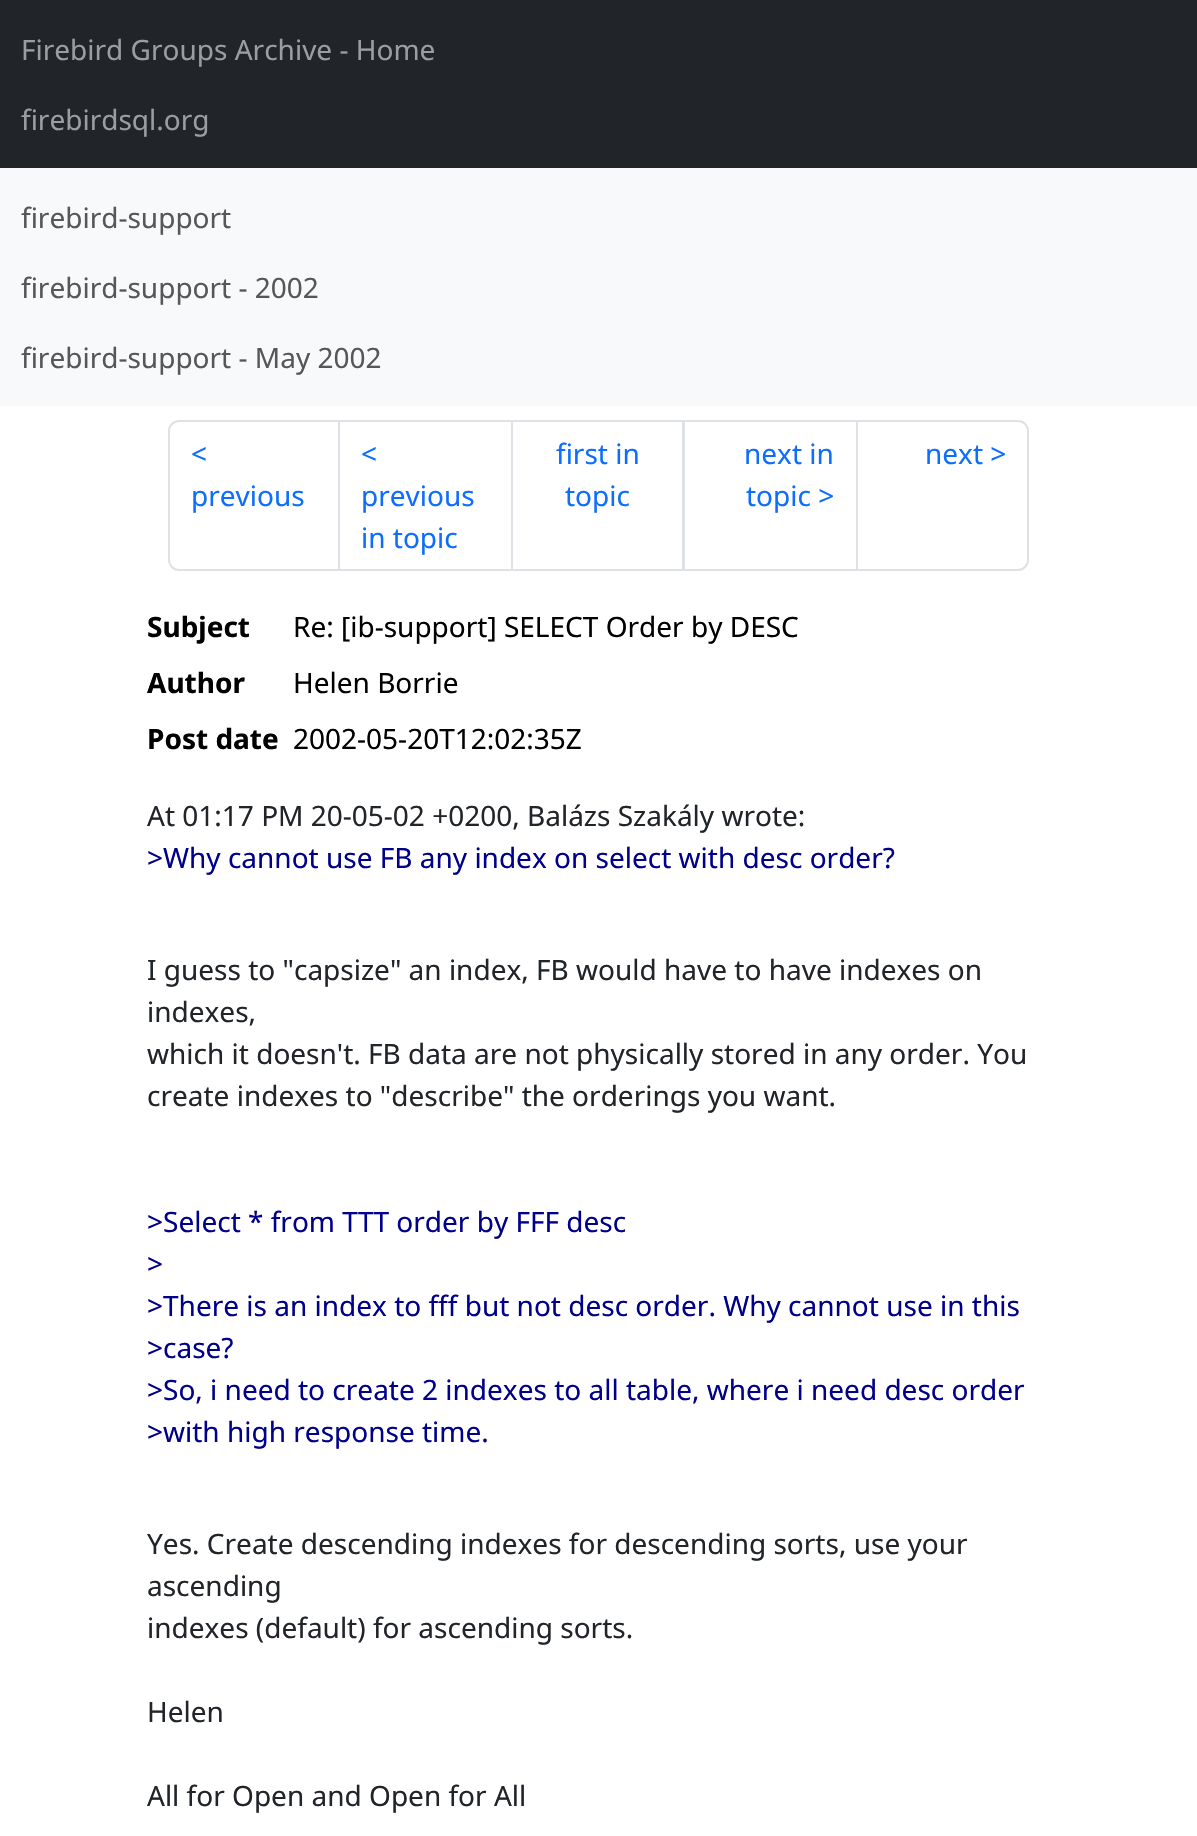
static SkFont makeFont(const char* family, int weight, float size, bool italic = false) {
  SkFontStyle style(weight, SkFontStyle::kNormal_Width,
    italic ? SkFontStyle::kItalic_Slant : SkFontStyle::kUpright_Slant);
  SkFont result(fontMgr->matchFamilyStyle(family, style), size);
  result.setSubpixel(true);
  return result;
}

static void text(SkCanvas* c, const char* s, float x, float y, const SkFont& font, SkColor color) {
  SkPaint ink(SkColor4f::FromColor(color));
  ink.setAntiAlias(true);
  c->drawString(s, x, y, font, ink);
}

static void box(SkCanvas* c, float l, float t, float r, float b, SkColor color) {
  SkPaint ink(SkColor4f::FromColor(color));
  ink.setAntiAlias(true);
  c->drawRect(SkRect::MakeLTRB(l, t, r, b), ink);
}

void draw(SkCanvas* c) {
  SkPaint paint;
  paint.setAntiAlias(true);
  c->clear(0xffffffff);
  box(c, 0, 0, 1197, 168, 0xff212529);
  SkFont face1 = makeFont("Noto Sans", 400, 28);
  text(c, "Firebird Groups Archive - Home", 21, 60, face1, 0xff9b9d9f);
  text(c, "firebirdsql.org", 21, 130, face1, 0xff9b9d9f);
  box(c, 0, 168, 1197, 406, 0xfff8f9fa);
  text(c, "firebird-support", 21, 228, face1, 0xff575758);
  text(c, "firebird-support - 2002", 21, 298, face1, 0xff575758);
  text(c, "firebird-support - May 2002", 21, 368, face1, 0xff575758);
  paint.setStyle(SkPaint::kStroke_Style);
  paint.setStrokeWidth(2);
  paint.setColor(0xffdee2e6);
  c->drawPath(SkPathBuilder().moveTo(179, 421).lineTo(339, 421).lineTo(339, 570).lineTo(179, 570).cubicTo(173.5f, 570, 169, 565.5f, 169, 560).lineTo(169, 431).cubicTo(169, 425.5f, 173.5f, 421, 179, 421).close().detach(), paint);
  text(c, "<", 191, 464, face1, 0xff0d6efd);
  text(c, "previous", 191, 506, face1, 0xff0d6efd);
  c->drawRect(SkRect::MakeLTRB(339, 421, 512, 570), paint);
  text(c, "<", 361, 464, face1, 0xff0d6efd);
  text(c, "previous", 361, 506, face1, 0xff0d6efd);
  text(c, "in topic", 361, 548, face1, 0xff0d6efd);
  c->drawRect(SkRect::MakeLTRB(512, 421, 683, 570), paint);
  text(c, "first in", 556, 464, face1, 0xff0d6efd);
  text(c, "topic", 565, 506, face1, 0xff0d6efd);
  c->drawRect(SkRect::MakeLTRB(684, 421, 857, 570), paint);
  text(c, "next in", 744, 464, face1, 0xff0d6efd);
  text(c, "topic >", 746, 506, face1, 0xff0d6efd);
  paint.setStyle(SkPaint::kFill_Style);
  paint.setColor(0xffffffff);
  c->drawPath(SkPathBuilder().moveTo(857, 421).lineTo(1018, 421).cubicTo(1023.5f, 421, 1028, 425.5f, 1028, 431).lineTo(1028, 560).cubicTo(1028, 565.5f, 1023.5f, 570, 1018, 570).lineTo(857, 570).close().detach(), paint);
  paint.setStyle(SkPaint::kStroke_Style);
  paint.setColor(0xffdee2e6);
  c->drawPath(SkPathBuilder().moveTo(857, 421).lineTo(1018, 421).cubicTo(1023.5f, 421, 1028, 425.5f, 1028, 431).lineTo(1028, 560).cubicTo(1028, 565.5f, 1023.5f, 570, 1018, 570).lineTo(857, 570).close().detach(), paint);
  text(c, "next >", 925, 464, face1, 0xff0d6efd);
  SkFont face2 = makeFont("Noto Sans", 700, 28);
  text(c, "Subject", 147, 637, face2, 0xff000000);
  text(c, "Re: [ib-support] SELECT Order by DESC", 293, 637, face1, 0xff000000);
  text(c, "Author", 147, 693, face2, 0xff000000);
  text(c, "Helen Borrie", 293, 693, face1, 0xff000000);
  text(c, "Post date", 147, 749, face2, 0xff000000);
  text(c, "2002-05-20T12:02:35Z", 293, 749, face1, 0xff000000);
  text(c, "At 01:17 PM 20-05-02 +0200, Balázs Szakály wrote:", 147, 826, face1, 0xff212529);
  text(c, ">Why cannot use FB any index on select with desc order?", 147, 868, face1, 0xff00008b);
  text(c, "I guess to \"capsize\" an index, FB would have to have indexes on", 147, 980, face1, 0xff212529);
  text(c, "indexes,", 147, 1022, face1, 0xff212529);
  text(c, "which it doesn't. FB data are not physically stored in any order. You", 147, 1064, face1, 0xff212529);
  text(c, "create indexes to \"describe\" the orderings you want.", 147, 1106, face1, 0xff212529);
  text(c, ">Select * from TTT order by FFF desc", 147, 1232, face1, 0xff00008b);
  text(c, ">", 147, 1274, face1, 0xff00008b);
  text(c, ">There is an index to fff but not desc order. Why cannot use in this", 147, 1316, face1, 0xff00008b);
  text(c, ">case?", 147, 1358, face1, 0xff00008b);
  text(c, ">So, i need to create 2 indexes to all table, where i need desc order", 147, 1400, face1, 0xff00008b);
  text(c, ">with high response time.", 147, 1442, face1, 0xff00008b);
  text(c, "Yes. Create descending indexes for descending sorts, use your", 147, 1554, face1, 0xff212529);
  text(c, "ascending", 147, 1596, face1, 0xff212529);
  text(c, "indexes (default) for ascending sorts.", 147, 1638, face1, 0xff212529);
  text(c, "Helen", 147, 1722, face1, 0xff212529);
  text(c, "All for Open and Open for All", 147, 1806, face1, 0xff212529);
}
